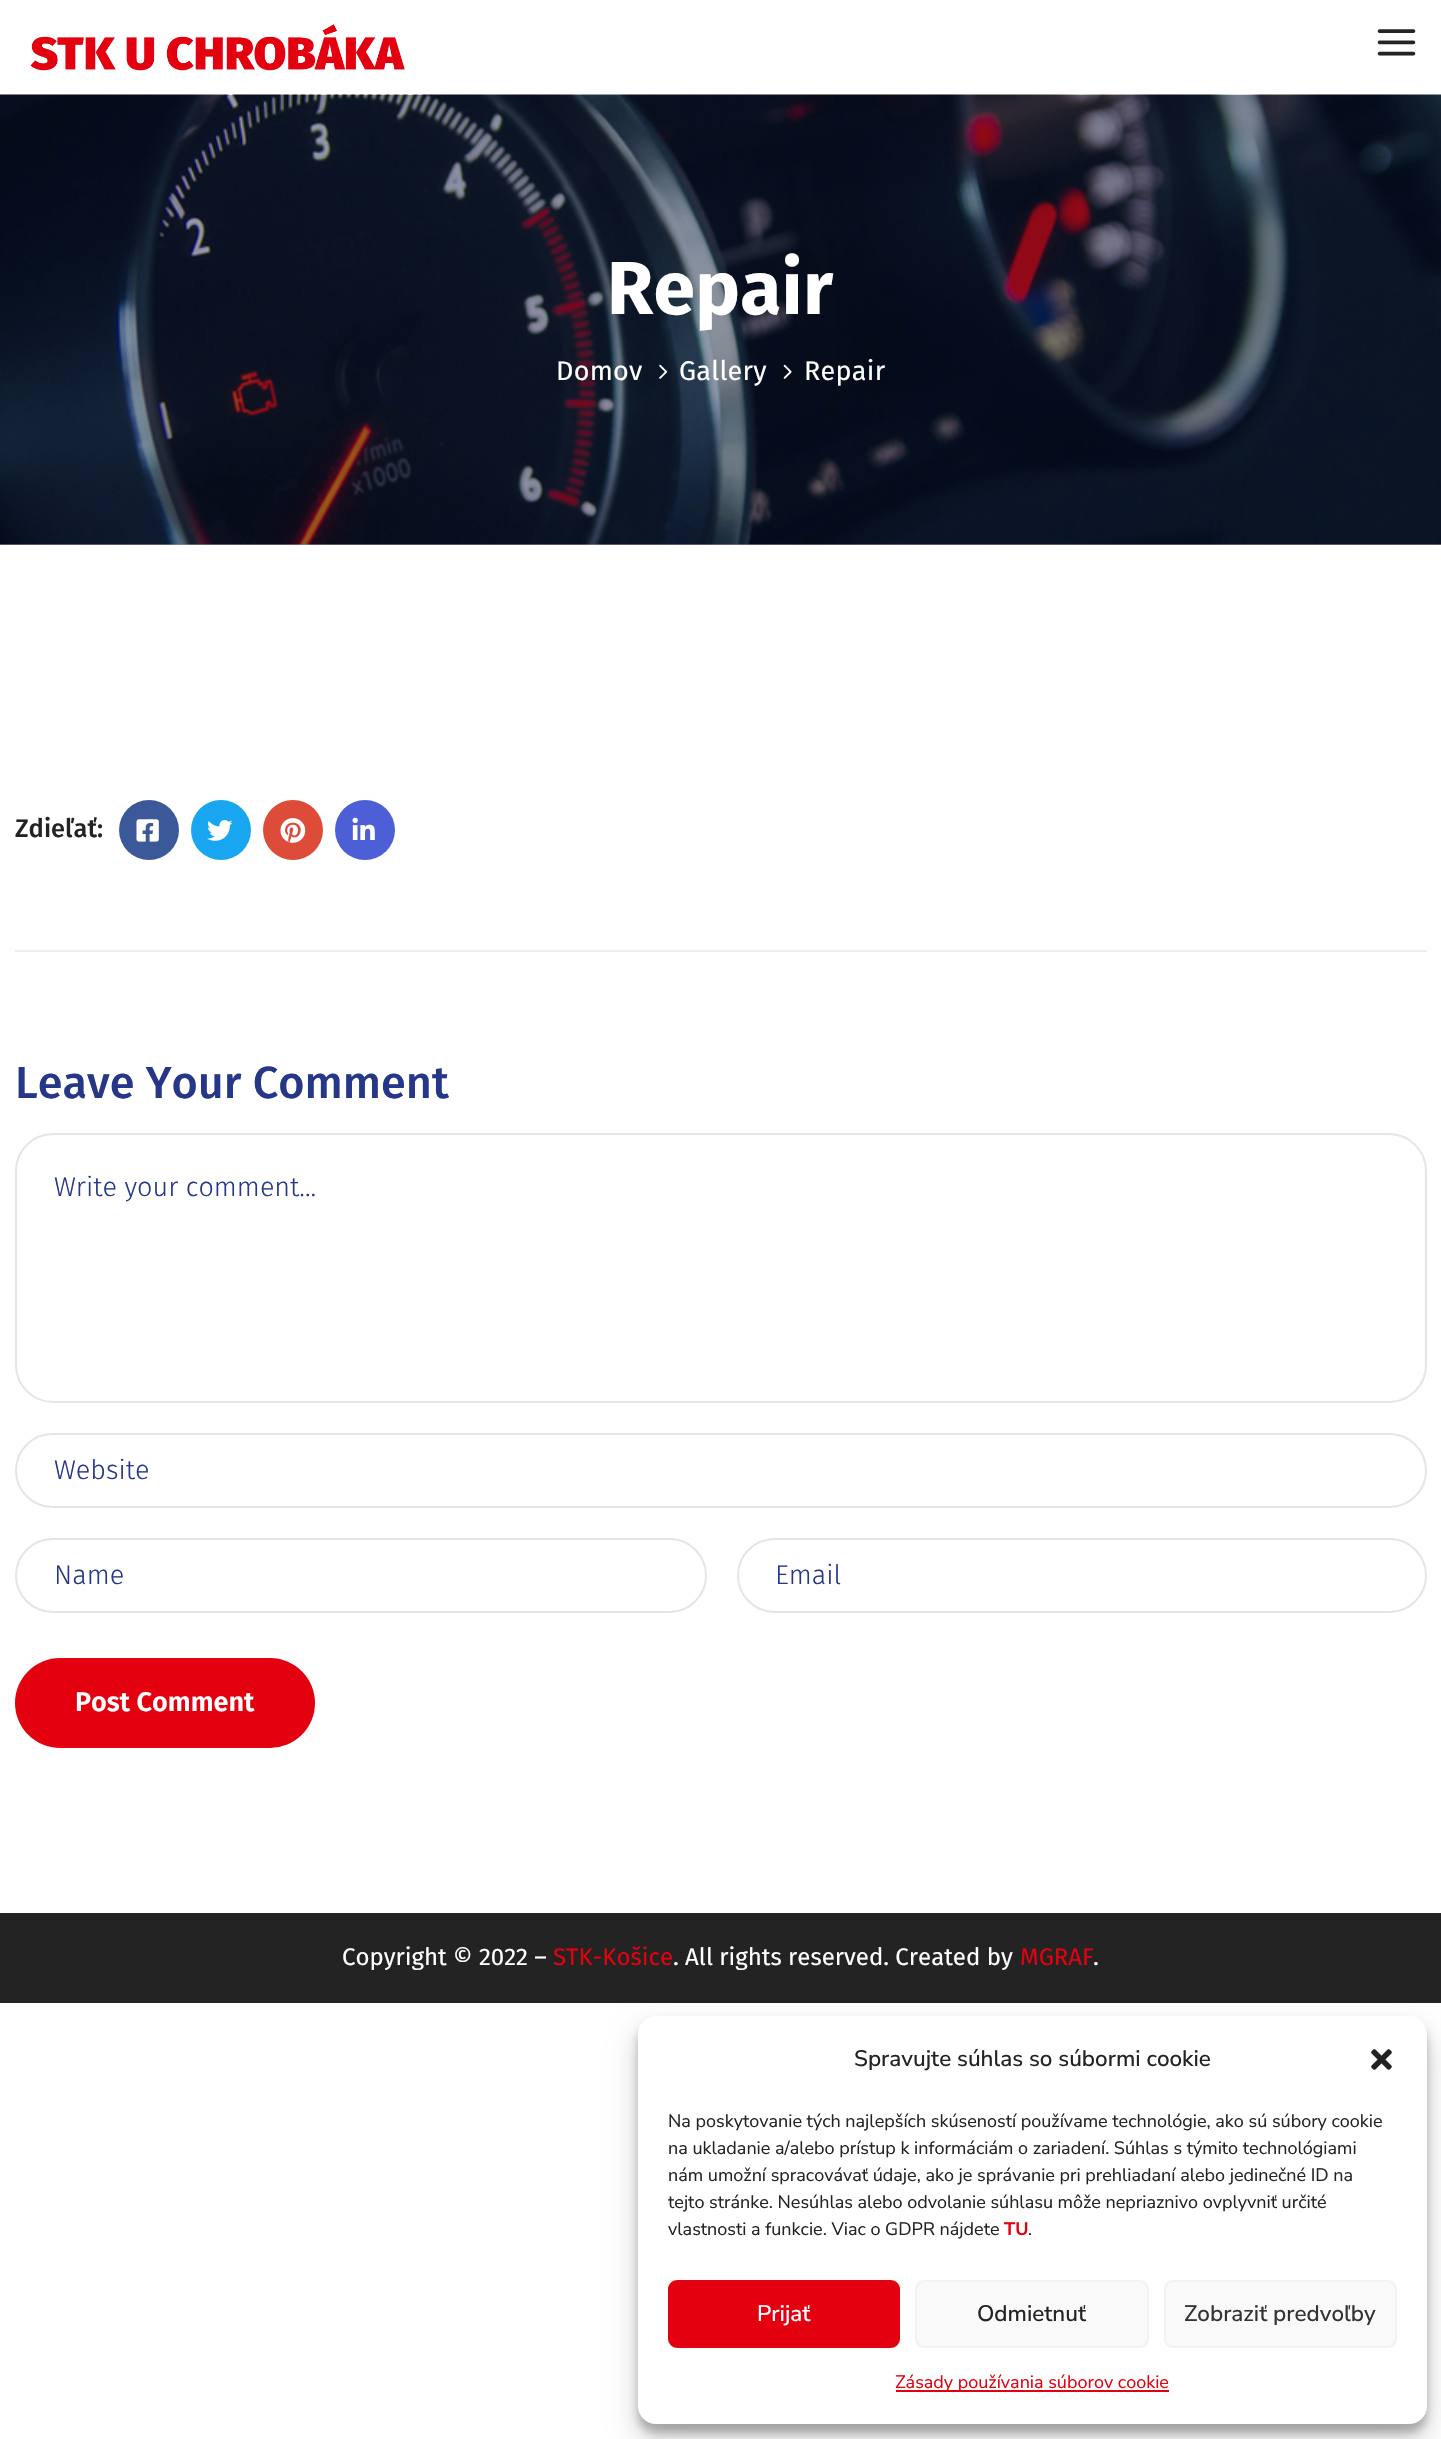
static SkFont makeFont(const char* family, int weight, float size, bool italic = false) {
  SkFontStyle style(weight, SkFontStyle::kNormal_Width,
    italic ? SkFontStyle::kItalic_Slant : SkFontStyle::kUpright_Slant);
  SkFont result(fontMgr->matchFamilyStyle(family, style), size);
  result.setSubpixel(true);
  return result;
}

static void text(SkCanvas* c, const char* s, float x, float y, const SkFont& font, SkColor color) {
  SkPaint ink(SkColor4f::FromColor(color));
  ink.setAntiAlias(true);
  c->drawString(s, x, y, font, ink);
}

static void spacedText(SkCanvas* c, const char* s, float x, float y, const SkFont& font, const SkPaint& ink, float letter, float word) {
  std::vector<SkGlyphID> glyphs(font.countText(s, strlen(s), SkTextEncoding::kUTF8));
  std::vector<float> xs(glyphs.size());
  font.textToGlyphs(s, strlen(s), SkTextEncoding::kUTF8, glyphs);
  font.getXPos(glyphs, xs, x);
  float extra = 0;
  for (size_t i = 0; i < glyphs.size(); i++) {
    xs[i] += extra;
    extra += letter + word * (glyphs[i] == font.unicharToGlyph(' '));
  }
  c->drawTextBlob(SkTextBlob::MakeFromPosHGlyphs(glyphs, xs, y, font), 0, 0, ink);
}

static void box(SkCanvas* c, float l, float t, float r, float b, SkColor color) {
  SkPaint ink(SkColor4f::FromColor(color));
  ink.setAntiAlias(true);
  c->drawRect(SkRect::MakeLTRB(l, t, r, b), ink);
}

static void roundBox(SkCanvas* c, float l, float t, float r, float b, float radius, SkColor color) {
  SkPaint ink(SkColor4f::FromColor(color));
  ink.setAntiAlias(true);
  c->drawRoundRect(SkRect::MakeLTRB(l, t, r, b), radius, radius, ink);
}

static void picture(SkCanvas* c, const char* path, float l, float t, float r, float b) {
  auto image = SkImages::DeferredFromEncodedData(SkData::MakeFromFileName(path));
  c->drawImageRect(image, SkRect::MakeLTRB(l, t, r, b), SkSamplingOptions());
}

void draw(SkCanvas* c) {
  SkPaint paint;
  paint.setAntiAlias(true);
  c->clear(0xffffffff);
  box(c, 0, 544, 1441, 545, 0xff9ba2b0);
  picture(c, "img_01.png", 30, 24, 405, 71);
  picture(c, "img_02.png", 1377, 29, 1416, 56);
  picture(c, "img_03.png", 0, 94, 1441, 545);
  SkFont face1 = makeFont("Fira Sans", 700, 75);
  paint.setColor(0xffffffff);
  spacedText(c, "Repair", 607, 314, face1, paint, 0.25f, 0);
  SkFont face2 = makeFont("Fira Sans", 400, 27);
  spacedText(c, "Domov", 556, 380, face2, paint, 0.25f, 0);
  picture(c, "img_04.png", 659, 364, 668, 379);
  spacedText(c, "Gallery", 679, 380, face2, paint, 0.25f, 0);
  picture(c, "img_05.png", 783, 364, 792, 379);
  spacedText(c, "Repair", 804, 380, face2, paint, 0.25f, 0);
  box(c, 15, 950, 1427, 952, 0xffeeeeee);
  SkFont face3 = makeFont("Fira Sans", 500, 25.5f);
  text(c, "Zdieľať:", 15, 837, face3, 0xff232323);
  paint.setColor(0xff3b5998);
  c->drawCircle(149, 830, 30, paint);
  picture(c, "img_06.png", 136, 819, 159, 842);
  paint.setColor(0xff18a6f0);
  c->drawCircle(221, 830, 30, paint);
  picture(c, "img_07.png", 207, 820, 233, 841);
  paint.setColor(0xffdd4b39);
  c->drawCircle(293, 830, 30, paint);
  picture(c, "img_08.png", 280, 818, 306, 843);
  paint.setColor(0xff4c5fd7);
  c->drawCircle(365, 830, 30, paint);
  picture(c, "img_09.png", 352, 817, 375, 840);
  SkFont face4 = makeFont("Fira Sans", 500, 45);
  text(c, "Leave Your Comment", 15, 1098, face4, 0xff263788);
  paint.setStyle(SkPaint::kStroke_Style);
  paint.setStrokeWidth(2);
  paint.setColor(0xffe5e5e5);
  c->drawRoundRect(SkRect::MakeLTRB(16, 1134, 1426, 1402), 37, 37, paint);
  SkFont face5 = makeFont("Fira Sans", 300, 27);
  text(c, "Write your comment...", 54, 1196, face5, 0xff263788);
  c->drawRoundRect(SkRect::MakeLTRB(16, 1434, 1426, 1507), 36.5f, 36.5f, paint);
  text(c, "Website", 54, 1479, face5, 0xff263788);
  c->drawRoundRect(SkRect::MakeLTRB(16, 1539, 706, 1612), 36.5f, 36.5f, paint);
  text(c, "Name", 54, 1584, face5, 0xff263788);
  c->drawRoundRect(SkRect::MakeLTRB(738, 1539, 1426, 1612), 36.5f, 36.5f, paint);
  text(c, "Email", 775, 1584, face5, 0xff263788);
  roundBox(c, 15, 1658, 315, 1748, 45, 0xffe3000f);
  SkFont face6 = makeFont("Fira Sans", 600, 27);
  text(c, "Post Comment", 75, 1711, face6, 0xffffffff);
  box(c, 0, 1913, 1441, 2003, 0xff232323);
  SkFont face7 = makeFont("Fira Sans", 400, 24);
  text(c, "Copyright © 2022 –", 342, 1965, face7, 0xffffffff);
  text(c, "STK-Košice", 553, 1965, face7, 0xffe3000f);
  text(c, ". All rights reserved. Created by", 673, 1965, face7, 0xffffffff);
  text(c, "MGRAF", 1020, 1965, face7, 0xffe3000f);
  text(c, ".", 1093, 1965, face7, 0xffffffff);
  paint.setStyle(SkPaint::kFill_Style);
  paint.setColor(0x3b000000);
  paint.setMaskFilter(SkMaskFilter::MakeBlur(kNormal_SkBlurStyle, 4.5f));
  c->drawRoundRect(SkRect::MakeLTRB(638, 2025, 1427, 2433), 18, 18, paint);
  paint.setMaskFilter(nullptr);
  paint.setColor(0x30000000);
  paint.setMaskFilter(SkMaskFilter::MakeBlur(kNormal_SkBlurStyle, 15));
  c->drawRoundRect(SkRect::MakeLTRB(638, 2031, 1427, 2439), 18, 18, paint);
  paint.setMaskFilter(nullptr);
  roundBox(c, 638, 2016, 1427, 2424, 18, 0xffffffff);
  SkFont face8 = makeFont("Nunito Sans", 500, 22.5f);
  text(c, "Spravujte súhlas so súbormi cookie", 854, 2066, face8, 0xff232323);
  picture(c, "img_10.png", 1371, 2049, 1392, 2070);
  SkFont face9 = makeFont("Nunito Sans", 400, 18);
  text(c, "Na poskytovanie tých najlepších skúseností používame technológie, ako sú súbory cookie", 668, 2127, face9, 0xff232323);
  text(c, "na ukladanie a/alebo prístup k informáciám o zariadení. Súhlas s týmito technológiami", 668, 2154, face9, 0xff232323);
  text(c, "nám umožní spracovávať údaje, ako je správanie pri prehliadaní alebo jedinečné ID na", 668, 2181, face9, 0xff232323);
  text(c, "tejto stránke. Nesúhlas alebo odvolanie súhlasu môže nepriaznivo ovplyvniť určité", 668, 2208, face9, 0xff232323);
  text(c, "vlastnosti a funkcie. Viac o GDPR nájdete", 668, 2235, face9, 0xff232323);
  SkFont face10 = makeFont("Nunito Sans", 700, 18);
  text(c, "TU", 1004, 2235, face10, 0xffe3000f);
  text(c, ".", 1028, 2235, face9, 0xff232323);
  paint.setColor(0xffe3000f);
  c->drawRoundRect(SkRect::MakeLTRB(669, 2281, 899, 2347), 8, 8, paint);
  paint.setStyle(SkPaint::kStroke_Style);
  c->drawRoundRect(SkRect::MakeLTRB(669, 2281, 899, 2347), 8, 8, paint);
  text(c, "Prijať", 757, 2321, face8, 0xffffffff);
  paint.setStyle(SkPaint::kFill_Style);
  paint.setColor(0xfff9f9f9);
  c->drawRoundRect(SkRect::MakeLTRB(916, 2281, 1148, 2347), 8, 8, paint);
  paint.setStyle(SkPaint::kStroke_Style);
  paint.setColor(0xfff2f2f2);
  c->drawRoundRect(SkRect::MakeLTRB(916, 2281, 1148, 2347), 8, 8, paint);
  text(c, "Odmietnuť", 977, 2321, face8, 0xff232323);
  paint.setStyle(SkPaint::kFill_Style);
  paint.setColor(0xfff9f9f9);
  c->drawRoundRect(SkRect::MakeLTRB(1165, 2281, 1396, 2347), 8, 8, paint);
  paint.setStyle(SkPaint::kStroke_Style);
  paint.setColor(0xfff2f2f2);
  c->drawRoundRect(SkRect::MakeLTRB(1165, 2281, 1396, 2347), 8, 8, paint);
  text(c, "Zobraziť predvoľby", 1184, 2321, face8, 0xff333333);
  box(c, 896, 2390, 1169, 2392, 0xffe3000f);
  text(c, "Zásady používania súborov cookie", 895, 2388, face9, 0xffe3000f);
}
